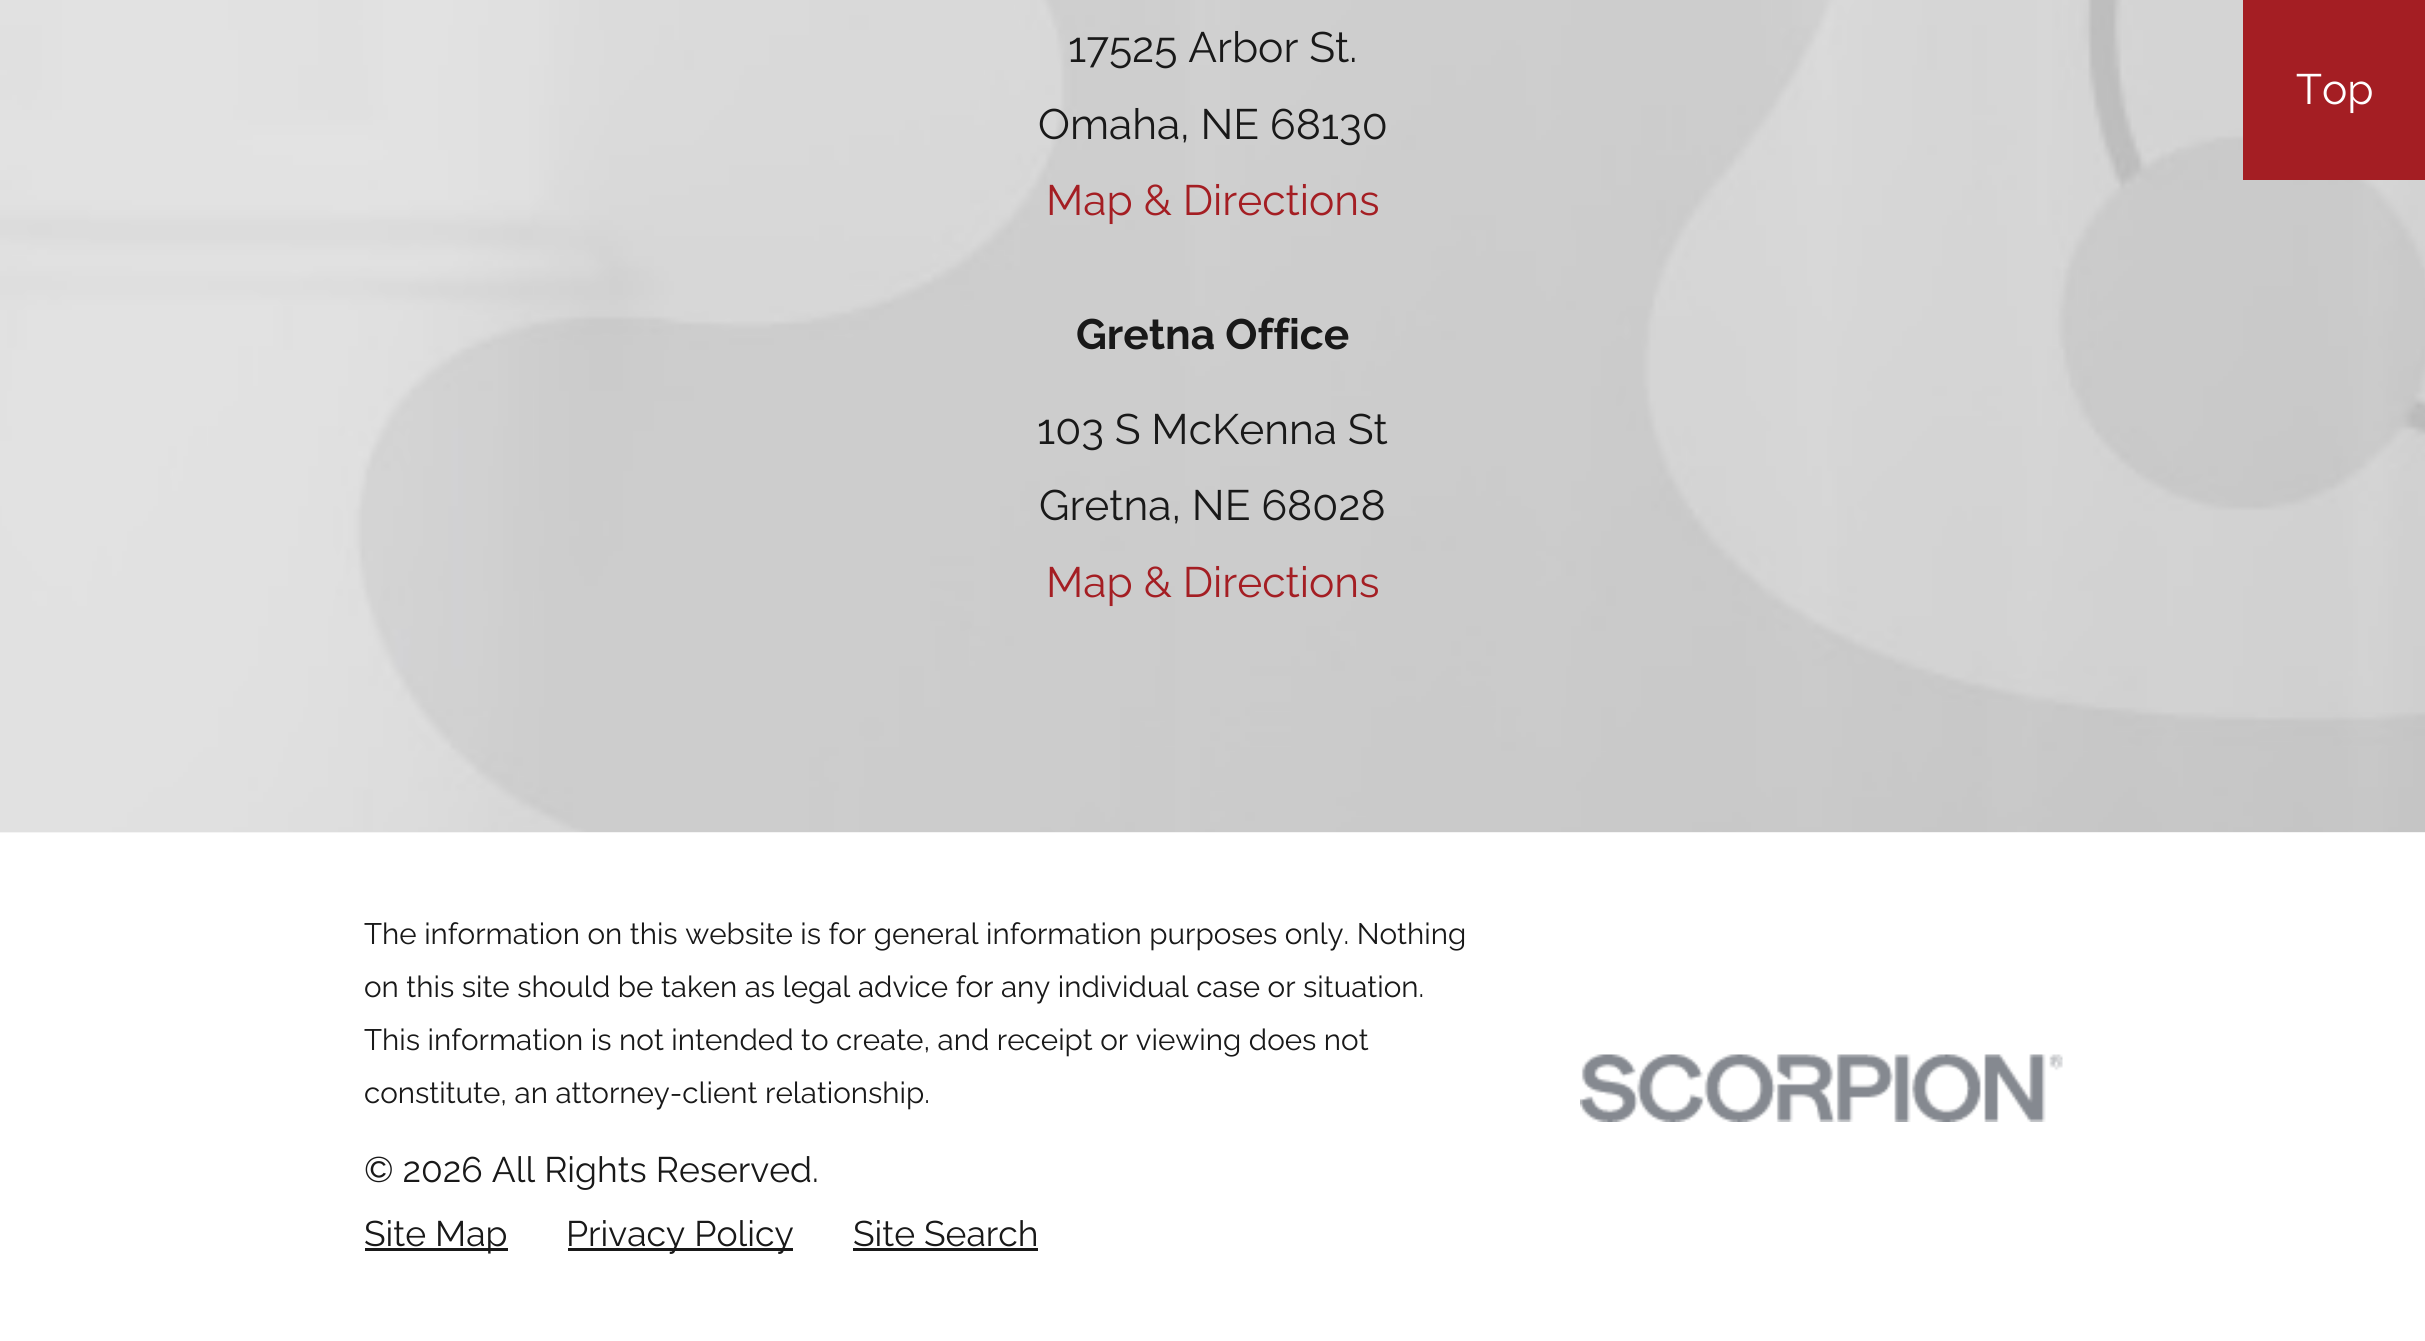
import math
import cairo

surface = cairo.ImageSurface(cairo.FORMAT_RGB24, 2425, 1341)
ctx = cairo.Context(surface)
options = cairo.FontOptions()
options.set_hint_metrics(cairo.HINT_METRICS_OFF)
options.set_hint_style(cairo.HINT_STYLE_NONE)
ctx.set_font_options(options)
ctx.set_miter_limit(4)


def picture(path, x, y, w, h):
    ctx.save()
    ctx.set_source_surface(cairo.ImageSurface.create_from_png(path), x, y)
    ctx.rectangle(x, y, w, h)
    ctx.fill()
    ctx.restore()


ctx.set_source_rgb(1, 1, 1)
ctx.paint()
ctx.set_source_rgb(0.957, 0.957, 0.957)
ctx.rectangle(0, 832, 2425, 1)
ctx.fill()
picture("img1.png", 0, 0, 2425, 832)
ctx.select_font_face("Raleway")
ctx.set_font_size(42.5)
ctx.set_source_rgb(0.098, 0.098, 0.098)
ctx.move_to(1068, 62)
ctx.show_text("17525 Arbor St.")
ctx.move_to(1038, 139)
ctx.show_text("Omaha, NE 68130")
ctx.set_source_rgb(0.643, 0.118, 0.137)
ctx.move_to(1046, 215)
ctx.show_text("Map & Directions")
ctx.select_font_face("Raleway", cairo.FONT_SLANT_NORMAL, cairo.FONT_WEIGHT_BOLD)
ctx.set_source_rgb(0.098, 0.098, 0.098)
ctx.move_to(1076, 349)
ctx.show_text("Gretna Office")
ctx.select_font_face("Raleway")
ctx.move_to(1037, 444)
ctx.show_text("103 S McKenna St")
ctx.move_to(1039, 520)
ctx.show_text("Gretna, NE 68028")
ctx.set_source_rgb(0.643, 0.118, 0.137)
ctx.move_to(1046, 597)
ctx.show_text("Map & Directions")
ctx.set_font_size(29.55)
ctx.set_source_rgb(0.098, 0.098, 0.098)
ctx.move_to(364, 944)
ctx.show_text("The information on this website is for general information purposes only. Nothing")
ctx.move_to(364, 997)
ctx.show_text("on this site should be taken as legal advice for any individual case or situation.")
ctx.move_to(364, 1050)
ctx.show_text("This information is not intended to create, and receipt or viewing does not")
ctx.move_to(364, 1103)
ctx.show_text("constitute, an attorney-client relationship.")
ctx.set_font_size(35.5)
ctx.move_to(364, 1182)
ctx.show_text("© 2026 All Rights Reserved.")
ctx.rectangle(365, 1248, 143, 3)
ctx.fill()
ctx.move_to(364, 1246)
ctx.show_text("Site Map")
ctx.rectangle(568, 1248, 225, 3)
ctx.fill()
ctx.move_to(566, 1246)
ctx.show_text("Privacy Policy")
ctx.move_to(853, 1246)
ctx.show_text("Site Search")
ctx.rectangle(853, 1248, 185, 3)
ctx.fill()
picture("img2.png", 1580, 1054, 483, 68)
ctx.set_source_rgb(0.643, 0.118, 0.137)
ctx.rectangle(2243, 0, 182, 180)
ctx.fill()
ctx.set_font_size(42.5)
ctx.set_source_rgb(1, 1, 1)
ctx.move_to(2296, 104)
ctx.show_text("Top")
surface.write_to_png("page.png")
